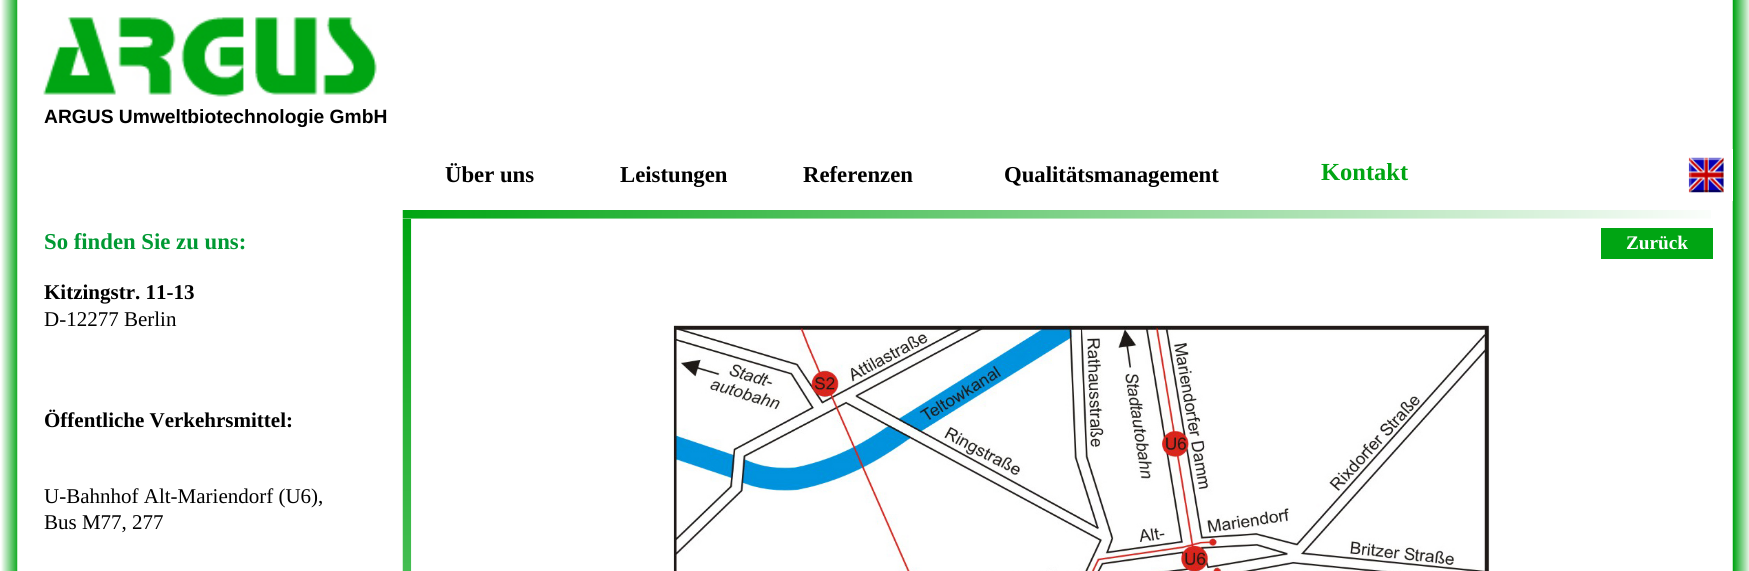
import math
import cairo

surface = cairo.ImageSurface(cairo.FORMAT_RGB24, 1749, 571)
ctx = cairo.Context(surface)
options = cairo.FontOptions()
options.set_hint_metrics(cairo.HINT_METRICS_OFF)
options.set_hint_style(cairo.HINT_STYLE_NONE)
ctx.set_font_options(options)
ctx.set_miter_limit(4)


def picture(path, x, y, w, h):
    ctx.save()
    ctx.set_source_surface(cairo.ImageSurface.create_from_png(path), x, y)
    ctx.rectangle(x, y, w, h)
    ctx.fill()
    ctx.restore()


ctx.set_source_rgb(1, 1, 1)
ctx.paint()
picture("img1.png", 1, 0, 17, 571)
picture("img2.png", 43, 17, 334, 80)
ctx.select_font_face("Liberation Sans", cairo.FONT_SLANT_NORMAL, cairo.FONT_WEIGHT_BOLD)
ctx.set_font_size(19.25)
ctx.set_source_rgb(0, 0, 0)
ctx.move_to(44, 123)
ctx.show_text("ARGUS Umweltbiotechnologie GmbH")
picture("img3.png", 1732, 0, 17, 571)
ctx.select_font_face("Liberation Serif", cairo.FONT_SLANT_NORMAL, cairo.FONT_WEIGHT_BOLD)
ctx.set_font_size(22.75)
ctx.move_to(445, 182)
ctx.show_text("Über uns")
ctx.move_to(620, 182)
ctx.show_text("Leistungen")
ctx.move_to(803, 182)
ctx.show_text("Referenzen")
ctx.move_to(1004, 182)
ctx.show_text("Qualitätsmanagement")
ctx.set_font_size(24.5)
ctx.set_source_rgb(0, 0.647, 0.075)
ctx.move_to(1321, 180)
ctx.show_text("Kontakt")
ctx.set_source_rgb(1, 1, 1)
ctx.rectangle(1732, 149, 1, 52)
ctx.fill()
picture("img4.png", 1688, 157, 36, 36)
picture("img5.png", 402, 210, 1309, 9)
ctx.set_font_size(22.75)
ctx.set_source_rgb(0, 0.6, 0.2)
ctx.move_to(44, 249)
ctx.show_text("So finden Sie zu uns:")
ctx.set_font_size(21)
ctx.set_source_rgb(0, 0, 0)
ctx.move_to(44, 299)
ctx.show_text("Kitzingstr. 11-13")
ctx.select_font_face("Liberation Serif")
ctx.move_to(44, 326)
ctx.show_text("D-12277 Berlin")
ctx.select_font_face("Liberation Serif", cairo.FONT_SLANT_NORMAL, cairo.FONT_WEIGHT_BOLD)
ctx.move_to(44, 427)
ctx.show_text("Öffentliche Verkehrsmittel:")
ctx.select_font_face("Liberation Serif")
ctx.move_to(44, 503)
ctx.show_text("U-Bahnhof Alt-Mariendorf (U6),")
ctx.move_to(44, 529)
ctx.show_text("Bus M77, 277")
picture("img6.png", 402, 218, 10, 353)
ctx.set_source_rgb(0, 0.647, 0.075)
ctx.rectangle(1601, 228, 112, 31)
ctx.fill()
ctx.select_font_face("Liberation Serif", cairo.FONT_SLANT_NORMAL, cairo.FONT_WEIGHT_BOLD)
ctx.set_font_size(19.25)
ctx.set_source_rgb(1, 1, 1)
ctx.move_to(1626, 249)
ctx.show_text("Zurück")
picture("img7.png", 673, 324, 817, 247)
surface.write_to_png("page.png")
